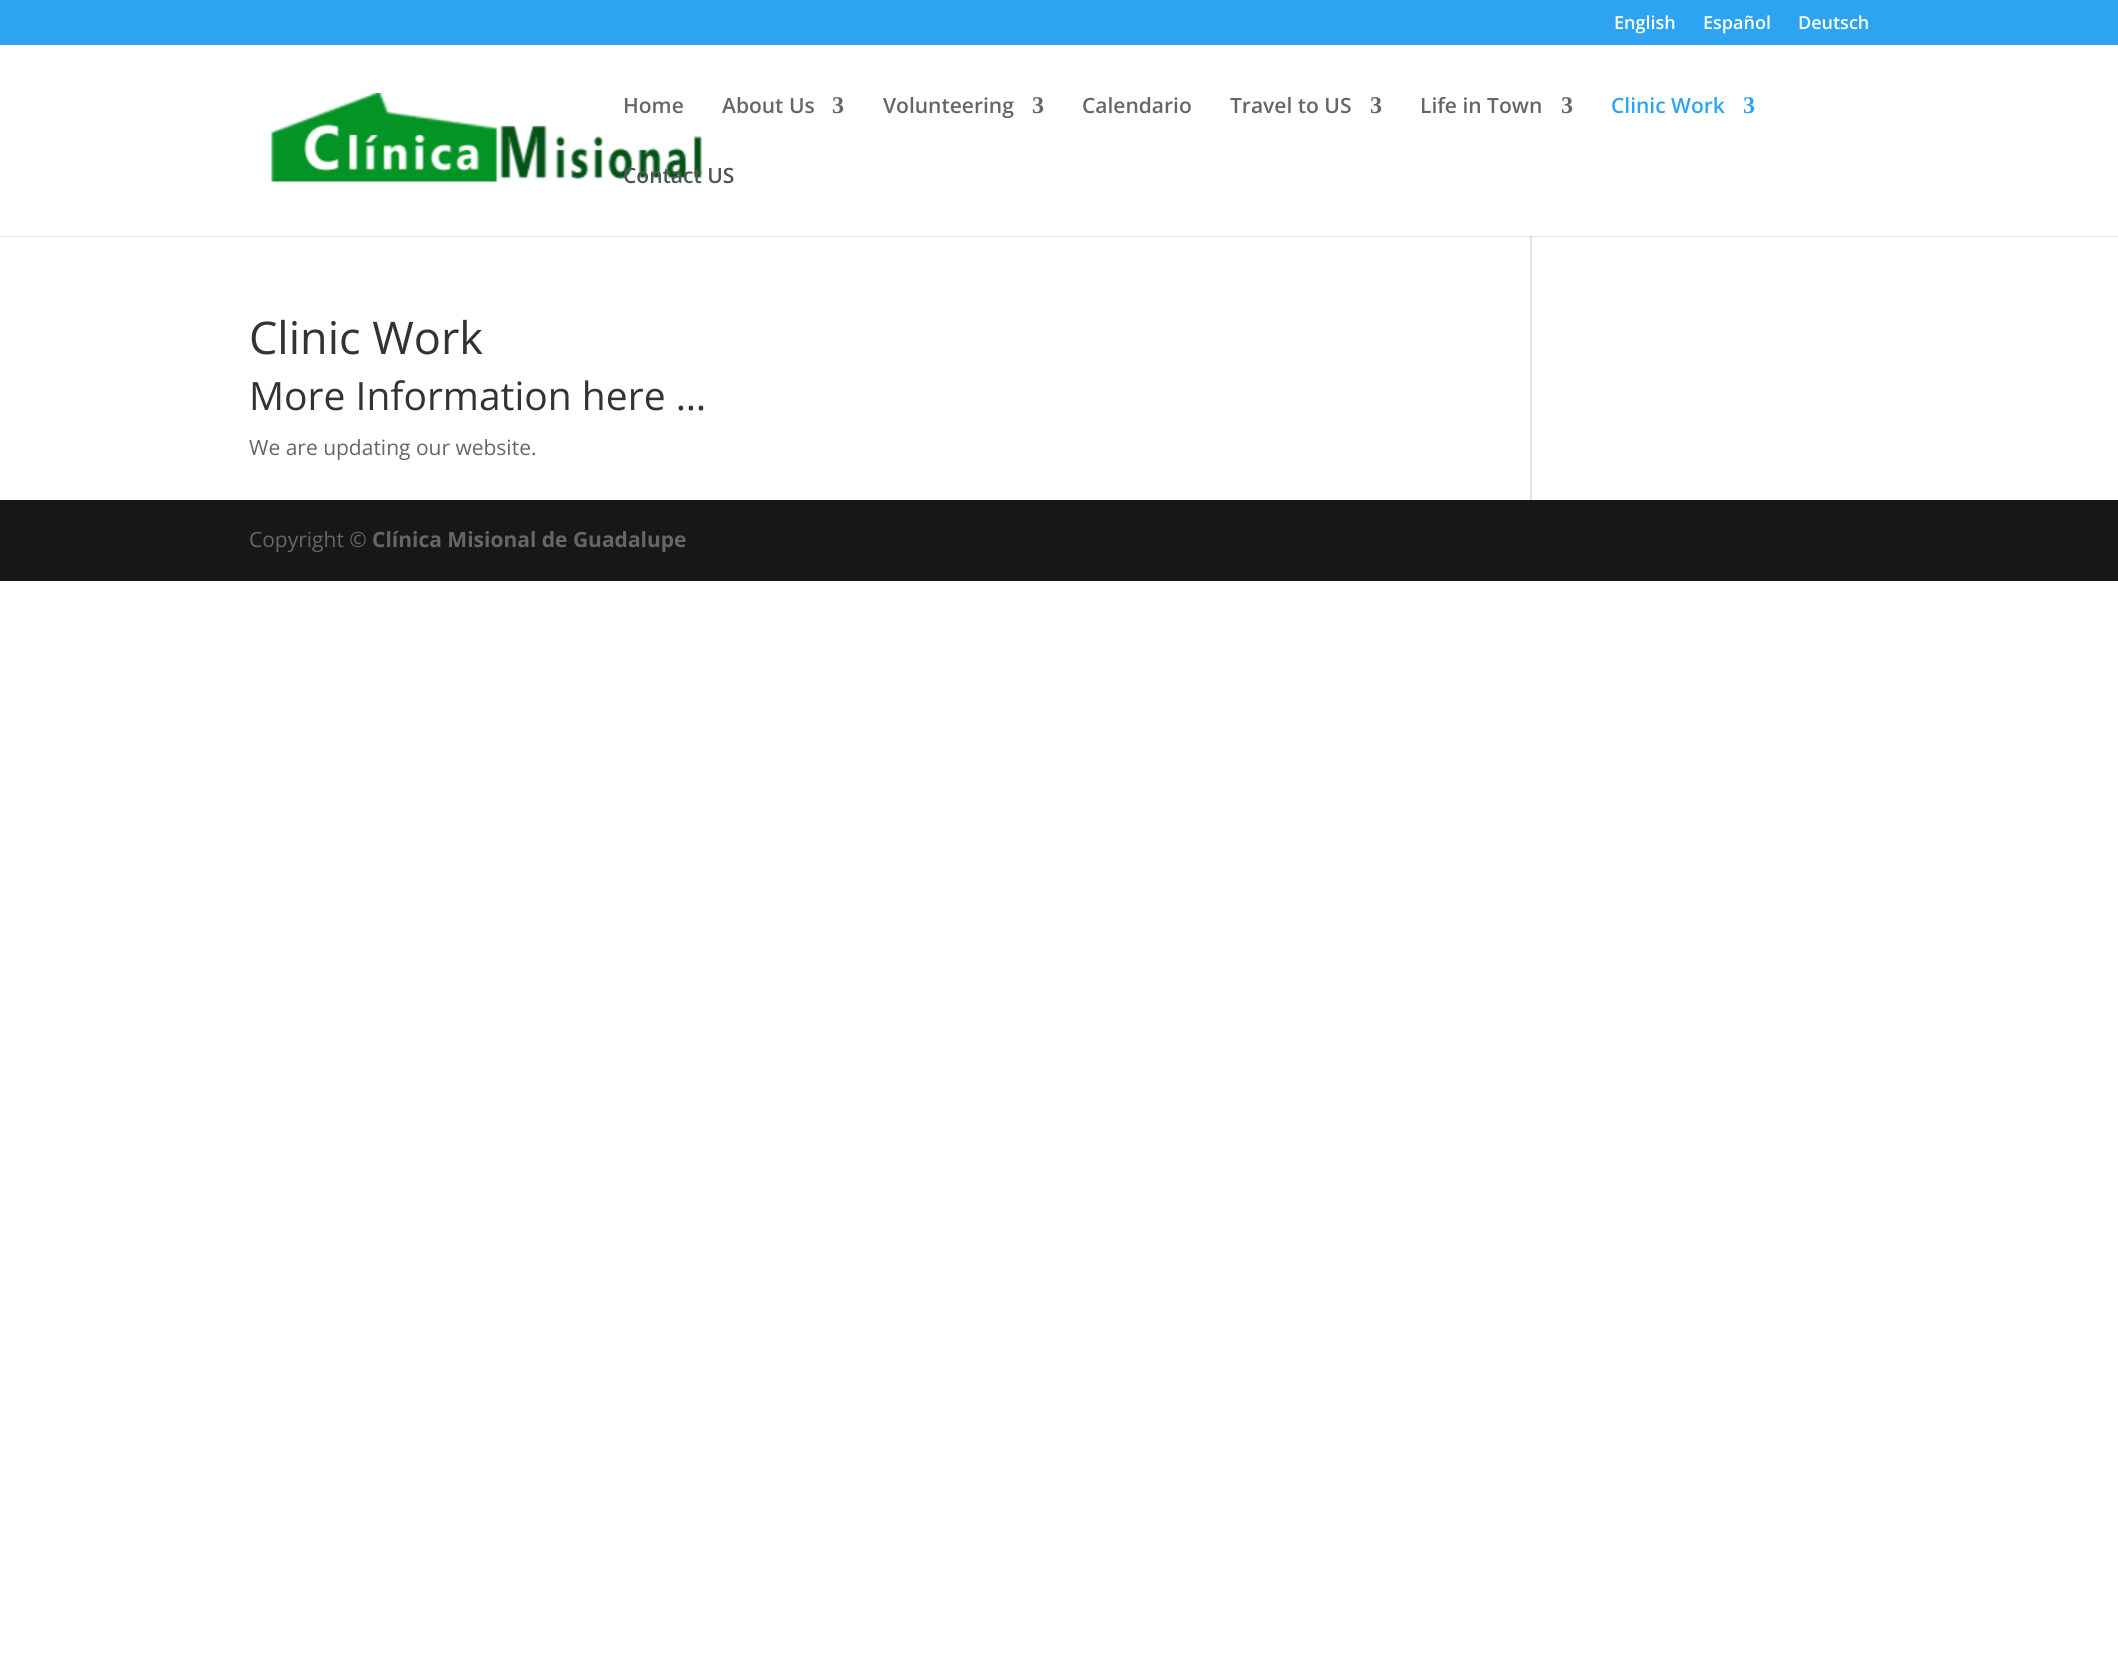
import math
import cairo

surface = cairo.ImageSurface(cairo.FORMAT_RGB24, 2118, 1677)
ctx = cairo.Context(surface)
options = cairo.FontOptions()
options.set_hint_metrics(cairo.HINT_METRICS_OFF)
options.set_hint_style(cairo.HINT_STYLE_NONE)
ctx.set_font_options(options)
ctx.set_miter_limit(4)


def picture(path, x, y, w, h):
    ctx.save()
    ctx.set_source_surface(cairo.ImageSurface.create_from_png(path), x, y)
    ctx.rectangle(x, y, w, h)
    ctx.fill()
    ctx.restore()


ctx.set_source_rgb(1, 1, 1)
ctx.paint()
ctx.set_source_rgb(0.902, 0.902, 0.902)
ctx.rectangle(0, 236, 2118, 1)
ctx.fill()
ctx.set_source_rgb(0.18, 0.639, 0.949)
ctx.rectangle(0, 0, 2118, 45)
ctx.fill()
ctx.select_font_face("Open Sans SemiBold")
ctx.set_font_size(18)
ctx.set_source_rgb(1, 1, 1)
ctx.move_to(1614, 29)
ctx.show_text("English")
ctx.move_to(1703, 29)
ctx.show_text("Español")
ctx.move_to(1798, 29)
ctx.show_text("Deutsch")
picture("img1.png", 270, 93, 433, 89)
ctx.set_font_size(21)
ctx.set_source_rgb(0.4, 0.4, 0.4)
ctx.move_to(623, 113)
ctx.show_text("Home")
ctx.move_to(722, 113)
ctx.show_text("About Us")
ctx.select_font_face("Liberation Serif", cairo.FONT_SLANT_NORMAL, cairo.FONT_WEIGHT_BOLD)
ctx.set_font_size(24)
ctx.move_to(832, 113)
ctx.show_text("3")
ctx.select_font_face("Open Sans SemiBold")
ctx.set_font_size(21)
ctx.move_to(883, 113)
ctx.show_text("Volunteering")
ctx.select_font_face("Liberation Serif", cairo.FONT_SLANT_NORMAL, cairo.FONT_WEIGHT_BOLD)
ctx.set_font_size(24)
ctx.move_to(1032, 113)
ctx.show_text("3")
ctx.select_font_face("Open Sans SemiBold")
ctx.set_font_size(21)
ctx.move_to(1082, 113)
ctx.show_text("Calendario")
ctx.move_to(1230, 113)
ctx.show_text("Travel to US")
ctx.select_font_face("Liberation Serif", cairo.FONT_SLANT_NORMAL, cairo.FONT_WEIGHT_BOLD)
ctx.set_font_size(24)
ctx.move_to(1370, 113)
ctx.show_text("3")
ctx.select_font_face("Open Sans SemiBold")
ctx.set_font_size(21)
ctx.move_to(1420, 113)
ctx.show_text("Life in Town")
ctx.select_font_face("Liberation Serif", cairo.FONT_SLANT_NORMAL, cairo.FONT_WEIGHT_BOLD)
ctx.set_font_size(24)
ctx.move_to(1561, 113)
ctx.show_text("3")
ctx.select_font_face("Open Sans SemiBold")
ctx.set_font_size(21)
ctx.set_source_rgb(0.18, 0.639, 0.949)
ctx.move_to(1611, 113)
ctx.show_text("Clinic Work")
ctx.select_font_face("Liberation Serif", cairo.FONT_SLANT_NORMAL, cairo.FONT_WEIGHT_BOLD)
ctx.set_font_size(24)
ctx.move_to(1743, 113)
ctx.show_text("3")
ctx.select_font_face("Open Sans SemiBold")
ctx.set_font_size(21)
ctx.set_source_rgb(0.31, 0.337, 0.314)
ctx.move_to(623, 183)
ctx.show_text("Contact US")
ctx.select_font_face("Open Sans")
ctx.set_font_size(45)
ctx.set_source_rgb(0.2, 0.2, 0.2)
ctx.move_to(249, 354)
ctx.show_text("Clinic Work")
ctx.set_font_size(39)
ctx.move_to(249, 410)
ctx.show_text("More Information here …")
ctx.set_font_size(21)
ctx.set_source_rgb(0.4, 0.4, 0.4)
ctx.move_to(249, 455)
ctx.show_text("We are updating our website.")
ctx.set_source_rgb(0.886, 0.886, 0.886)
ctx.rectangle(1530, 237, 2, 263)
ctx.fill()
ctx.set_source_rgb(0.796, 0.796, 0.796)
ctx.rectangle(1530, 236, 2, 1)
ctx.fill()
ctx.set_source_rgb(0.09, 0.09, 0.09)
ctx.rectangle(0, 500, 2118, 81)
ctx.fill()
ctx.set_source_rgb(0.4, 0.4, 0.4)
ctx.move_to(249, 547)
ctx.show_text("Copyright ©")
ctx.select_font_face("Open Sans", cairo.FONT_SLANT_NORMAL, cairo.FONT_WEIGHT_BOLD)
ctx.move_to(372, 547)
ctx.show_text("Clínica Misional de Guadalupe")
surface.write_to_png("page.png")
